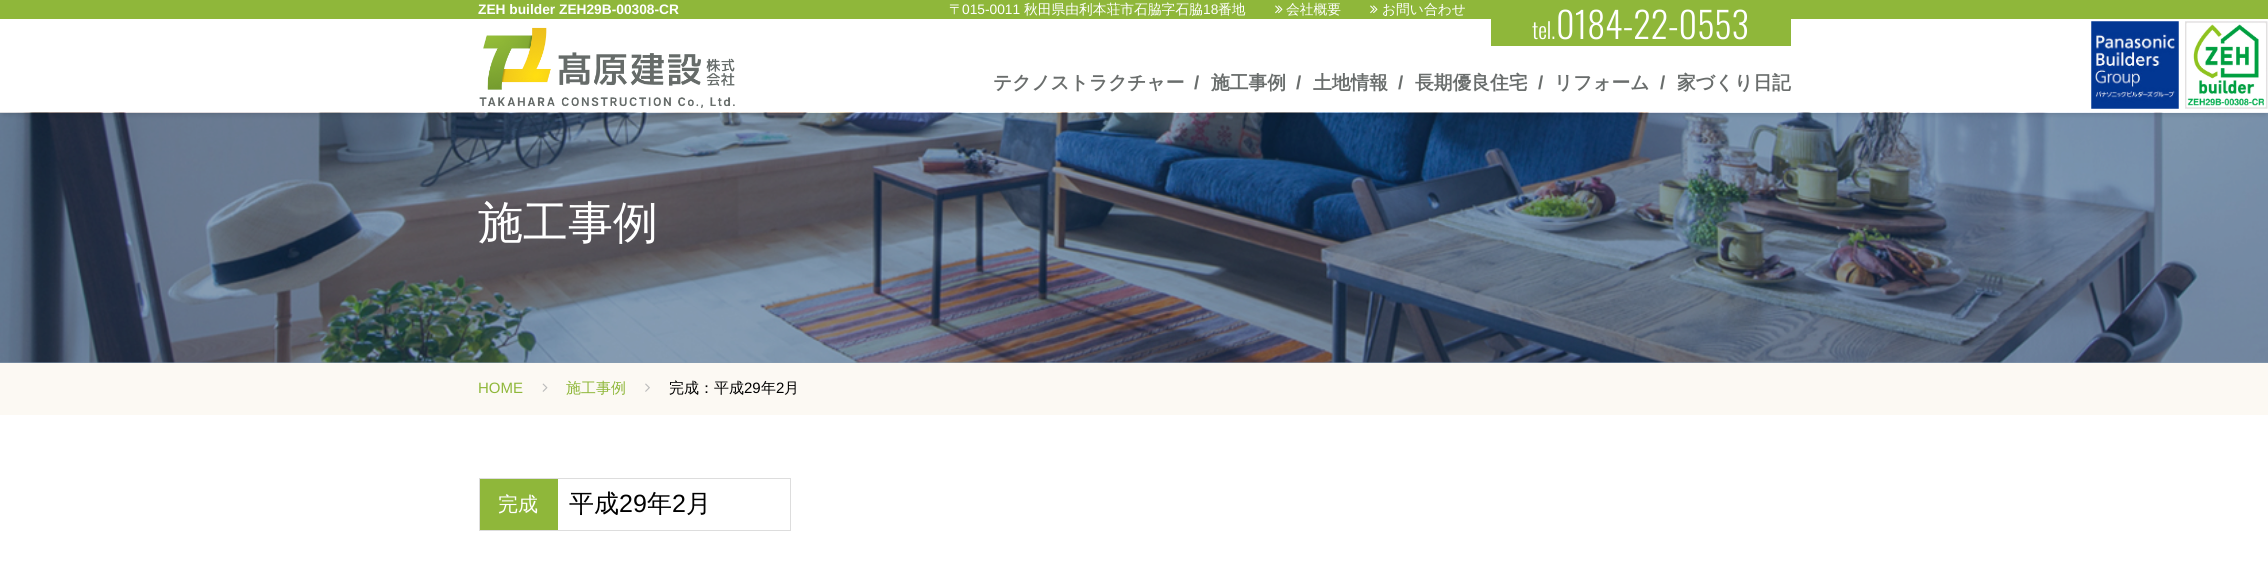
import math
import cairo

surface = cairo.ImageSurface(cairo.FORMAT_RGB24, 2268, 569)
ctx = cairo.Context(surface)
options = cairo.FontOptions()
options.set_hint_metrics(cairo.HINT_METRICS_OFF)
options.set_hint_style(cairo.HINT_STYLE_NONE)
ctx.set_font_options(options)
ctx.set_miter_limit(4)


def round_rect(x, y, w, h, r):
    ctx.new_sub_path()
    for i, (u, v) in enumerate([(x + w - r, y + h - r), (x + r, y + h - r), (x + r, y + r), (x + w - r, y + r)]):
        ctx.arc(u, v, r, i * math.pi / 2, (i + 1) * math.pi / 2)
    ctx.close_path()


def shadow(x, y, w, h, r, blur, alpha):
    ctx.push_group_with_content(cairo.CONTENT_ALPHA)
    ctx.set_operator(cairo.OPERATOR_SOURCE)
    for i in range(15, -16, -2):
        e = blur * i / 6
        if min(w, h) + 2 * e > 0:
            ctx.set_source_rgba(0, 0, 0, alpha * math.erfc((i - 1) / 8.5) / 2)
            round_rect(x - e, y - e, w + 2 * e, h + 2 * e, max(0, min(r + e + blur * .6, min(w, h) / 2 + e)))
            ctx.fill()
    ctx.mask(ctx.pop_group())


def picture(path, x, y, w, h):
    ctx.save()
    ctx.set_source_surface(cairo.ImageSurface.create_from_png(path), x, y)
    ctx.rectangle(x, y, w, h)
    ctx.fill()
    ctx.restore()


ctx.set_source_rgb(1, 1, 1)
ctx.paint()
ctx.set_source_rgb(0.533, 0.62, 0.702)
ctx.rectangle(0, 362, 2268, 1)
ctx.fill()
picture("img5.png", 0, 112, 2268, 251)
ctx.save()
ctx.set_fill_rule(cairo.FILL_RULE_EVEN_ODD)
ctx.new_path()
ctx.move_to(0, 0)
ctx.line_to(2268, 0)
ctx.line_to(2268, 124)
ctx.line_to(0, 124)
ctx.close_path()
ctx.move_to(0, 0)
ctx.line_to(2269, 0)
ctx.line_to(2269, 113)
ctx.line_to(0, 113)
ctx.close_path()
ctx.clip()
ctx.set_source_rgb(0, 0, 0)
shadow(4, 9, 2261, 105, 0, 3, 0.15)
ctx.restore()
ctx.set_source_rgb(0.561, 0.718, 0.227)
ctx.rectangle(0, 0, 2268, 19)
ctx.fill()
ctx.select_font_face("Liberation Sans", cairo.FONT_SLANT_NORMAL, cairo.FONT_WEIGHT_BOLD)
ctx.set_font_size(13.75)
ctx.set_source_rgb(1, 1, 1)
ctx.move_to(478, 14)
ctx.show_text("ZEH builder ZEH29B-00308-CR")
ctx.select_font_face("WenQuanYi Zen Hei Medium")
ctx.move_to(949, 14)
ctx.show_text("〒")
ctx.select_font_face("Liberation Sans")
ctx.move_to(962, 14)
ctx.show_text("015-0011")
ctx.select_font_face("WenQuanYi Zen Hei Medium")
ctx.move_to(1024, 14)
ctx.show_text("秋田県由利本荘市石脇字石脇")
ctx.select_font_face("Liberation Sans")
ctx.move_to(1203, 14)
ctx.show_text("18")
ctx.select_font_face("WenQuanYi Zen Hei Medium")
ctx.move_to(1218, 14)
ctx.show_text("番地")
picture("img1.png", 1275, 5, 8, 9)
ctx.move_to(1286, 14)
ctx.show_text("会社概要")
picture("img1.png", 1370, 5, 8, 9)
ctx.move_to(1382, 14)
ctx.show_text("お問い合わせ")
ctx.set_source_rgb(0.561, 0.718, 0.227)
ctx.rectangle(1491, 19, 300, 27)
ctx.fill()
ctx.select_font_face("Oswald Light")
ctx.set_font_size(22)
ctx.set_source_rgb(1, 1, 1)
ctx.move_to(1532, 39)
ctx.show_text("tel.")
ctx.set_font_size(36)
ctx.move_to(1556, 39)
ctx.show_text("0184-22-0553")
picture("img2.png", 2091, 21, 88, 88)
picture("img3.png", 2185, 21, 83, 88)
picture("img4.png", 479, 27, 256, 81)
ctx.select_font_face("WenQuanYi Zen Hei", cairo.FONT_SLANT_NORMAL, cairo.FONT_WEIGHT_BOLD)
ctx.set_font_size(18.75)
ctx.set_source_rgb(0.412, 0.427, 0.424)
ctx.move_to(993, 89)
ctx.show_text("テクノストラクチャー")
ctx.select_font_face("Liberation Sans", cairo.FONT_SLANT_NORMAL, cairo.FONT_WEIGHT_BOLD)
ctx.move_to(1194, 89)
ctx.show_text("/")
ctx.select_font_face("WenQuanYi Zen Hei", cairo.FONT_SLANT_NORMAL, cairo.FONT_WEIGHT_BOLD)
ctx.move_to(1211, 89)
ctx.show_text("施工事例")
ctx.select_font_face("Liberation Sans", cairo.FONT_SLANT_NORMAL, cairo.FONT_WEIGHT_BOLD)
ctx.move_to(1296, 89)
ctx.show_text("/")
ctx.select_font_face("WenQuanYi Zen Hei", cairo.FONT_SLANT_NORMAL, cairo.FONT_WEIGHT_BOLD)
ctx.move_to(1313, 89)
ctx.show_text("土地情報")
ctx.select_font_face("Liberation Sans", cairo.FONT_SLANT_NORMAL, cairo.FONT_WEIGHT_BOLD)
ctx.move_to(1398, 89)
ctx.show_text("/")
ctx.select_font_face("WenQuanYi Zen Hei", cairo.FONT_SLANT_NORMAL, cairo.FONT_WEIGHT_BOLD)
ctx.move_to(1415, 89)
ctx.show_text("長期優良住宅")
ctx.select_font_face("Liberation Sans", cairo.FONT_SLANT_NORMAL, cairo.FONT_WEIGHT_BOLD)
ctx.move_to(1538, 89)
ctx.show_text("/")
ctx.select_font_face("WenQuanYi Zen Hei", cairo.FONT_SLANT_NORMAL, cairo.FONT_WEIGHT_BOLD)
ctx.move_to(1554, 89)
ctx.show_text("リフォーム")
ctx.select_font_face("Liberation Sans", cairo.FONT_SLANT_NORMAL, cairo.FONT_WEIGHT_BOLD)
ctx.move_to(1660, 89)
ctx.show_text("/")
ctx.select_font_face("WenQuanYi Zen Hei", cairo.FONT_SLANT_NORMAL, cairo.FONT_WEIGHT_BOLD)
ctx.move_to(1677, 89)
ctx.show_text("家づくり日記")
ctx.select_font_face("WenQuanYi Zen Hei Medium")
ctx.set_font_size(45)
ctx.set_source_rgb(1, 1, 1)
ctx.move_to(478, 238)
ctx.show_text("施工事例")
ctx.set_source_rgb(0.988, 0.976, 0.953)
ctx.rectangle(0, 363, 2268, 52)
ctx.fill()
ctx.select_font_face("Liberation Sans")
ctx.set_font_size(15)
ctx.set_source_rgb(0.561, 0.718, 0.227)
ctx.move_to(478, 393)
ctx.show_text("HOME")
picture("img6.png", 542, 383, 6, 9)
ctx.select_font_face("WenQuanYi Zen Hei Medium")
ctx.move_to(566, 393)
ctx.show_text("施工事例")
picture("img7.png", 645, 383, 5, 9)
ctx.set_source_rgb(0, 0, 0)
ctx.move_to(669, 393)
ctx.show_text("完成：平成")
ctx.select_font_face("Liberation Sans")
ctx.move_to(744, 393)
ctx.show_text("29")
ctx.select_font_face("WenQuanYi Zen Hei Medium")
ctx.move_to(761, 393)
ctx.show_text("年")
ctx.select_font_face("Liberation Sans")
ctx.move_to(776, 393)
ctx.show_text("2")
ctx.select_font_face("WenQuanYi Zen Hei Medium")
ctx.move_to(784, 393)
ctx.show_text("月")
ctx.rectangle(479.5, 478.5, 311, 52)
ctx.set_source_rgb(0.867, 0.867, 0.867)
ctx.set_line_width(1)
ctx.stroke()
ctx.set_source_rgb(0.561, 0.718, 0.227)
ctx.rectangle(480, 479, 78, 51)
ctx.fill()
ctx.set_font_size(20)
ctx.set_source_rgb(1, 1, 1)
ctx.move_to(498, 511)
ctx.show_text("完成")
ctx.set_font_size(25)
ctx.set_source_rgb(0, 0, 0)
ctx.move_to(569, 512)
ctx.show_text("平成")
ctx.select_font_face("Liberation Sans")
ctx.move_to(619, 512)
ctx.show_text("29")
ctx.select_font_face("WenQuanYi Zen Hei Medium")
ctx.move_to(647, 512)
ctx.show_text("年")
ctx.select_font_face("Liberation Sans")
ctx.move_to(672, 512)
ctx.show_text("2")
ctx.select_font_face("WenQuanYi Zen Hei Medium")
ctx.move_to(686, 512)
ctx.show_text("月")
surface.write_to_png("page.png")
